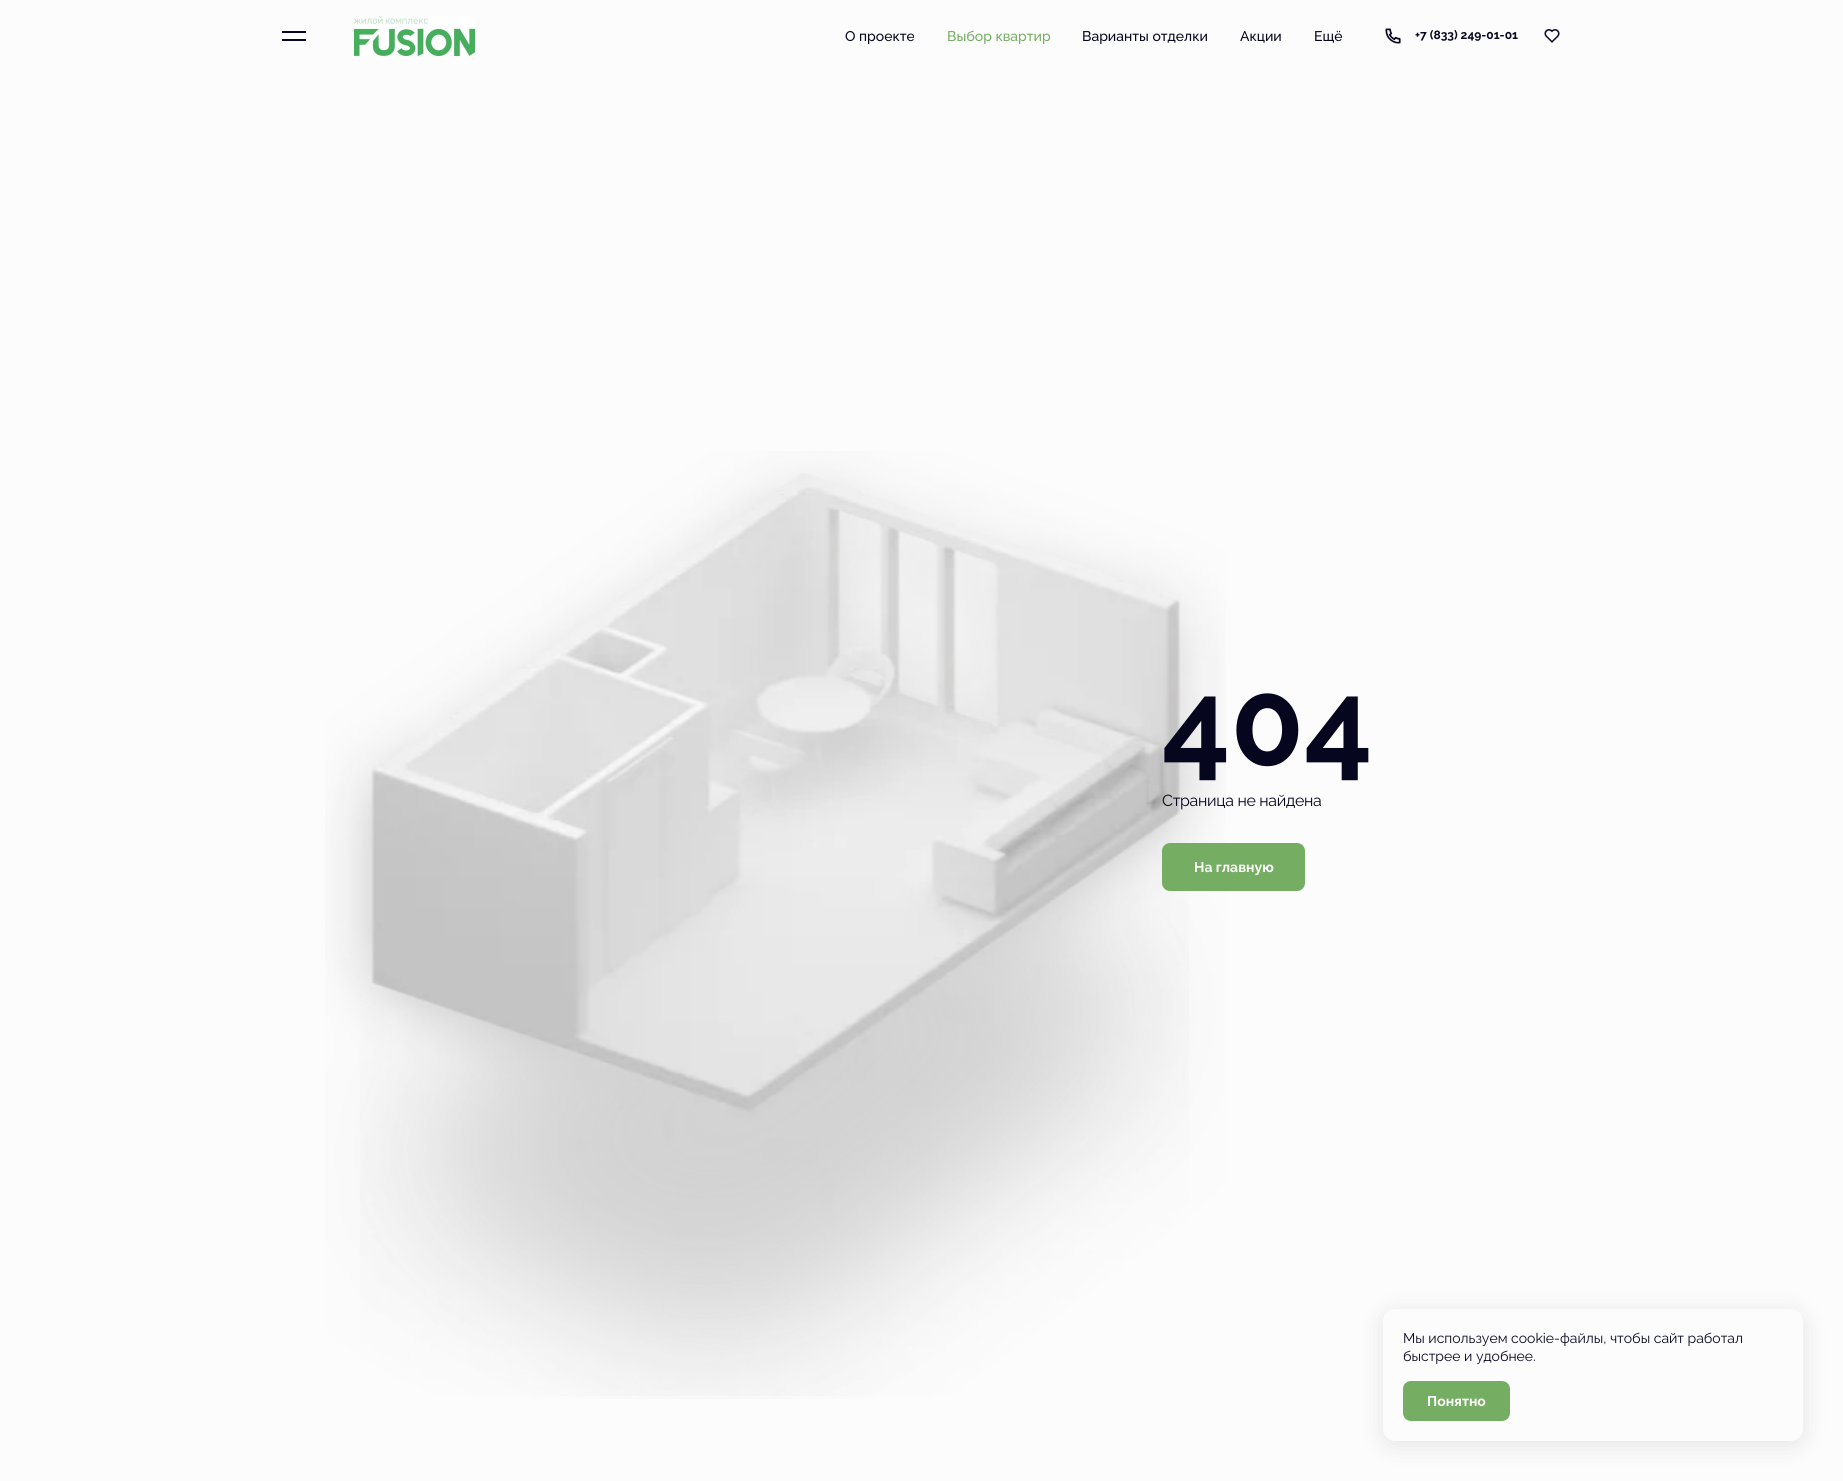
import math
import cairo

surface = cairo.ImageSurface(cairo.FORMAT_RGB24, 1843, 1481)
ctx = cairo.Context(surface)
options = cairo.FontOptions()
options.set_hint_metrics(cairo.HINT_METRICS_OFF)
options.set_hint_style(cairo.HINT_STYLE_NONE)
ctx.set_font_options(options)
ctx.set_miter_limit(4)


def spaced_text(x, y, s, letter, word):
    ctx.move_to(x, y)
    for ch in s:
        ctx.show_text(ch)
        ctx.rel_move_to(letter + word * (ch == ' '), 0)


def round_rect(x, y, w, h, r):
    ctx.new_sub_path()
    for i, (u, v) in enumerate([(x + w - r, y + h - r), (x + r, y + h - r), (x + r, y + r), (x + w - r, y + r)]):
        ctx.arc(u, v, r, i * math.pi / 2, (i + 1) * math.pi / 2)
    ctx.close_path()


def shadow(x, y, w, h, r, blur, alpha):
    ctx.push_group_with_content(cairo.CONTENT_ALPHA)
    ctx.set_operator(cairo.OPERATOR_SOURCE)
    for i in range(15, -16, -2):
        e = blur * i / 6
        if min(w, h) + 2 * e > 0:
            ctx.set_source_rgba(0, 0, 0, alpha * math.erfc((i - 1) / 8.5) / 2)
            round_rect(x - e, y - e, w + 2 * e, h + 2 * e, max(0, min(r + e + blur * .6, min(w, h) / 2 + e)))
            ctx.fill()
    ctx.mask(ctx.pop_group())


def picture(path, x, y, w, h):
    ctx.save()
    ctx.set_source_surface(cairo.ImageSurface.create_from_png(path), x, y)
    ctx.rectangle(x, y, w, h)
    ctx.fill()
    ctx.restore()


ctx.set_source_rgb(0.988, 0.988, 0.988)
ctx.paint()
ctx.set_source_rgb(0.027, 0.027, 0.122)
ctx.rectangle(282, 31, 24, 2)
ctx.fill()
ctx.rectangle(282, 39, 24, 2)
ctx.fill()
picture("img1.png", 354, 16, 121, 40)
ctx.select_font_face("Raleway Medium")
ctx.set_font_size(14)
ctx.move_to(845, 41)
ctx.show_text("О проекте")
ctx.set_source_rgb(0.459, 0.678, 0.384)
ctx.move_to(947, 41)
ctx.show_text("Выбор квартир")
ctx.set_source_rgb(0.027, 0.027, 0.122)
ctx.move_to(1082, 41)
ctx.show_text("Варианты отделки")
ctx.move_to(1240, 41)
ctx.show_text("Акции")
ctx.move_to(1314, 41)
ctx.show_text("Ещё")
picture("img2.png", 1385, 28, 16, 16)
ctx.select_font_face("Raleway", cairo.FONT_SLANT_NORMAL, cairo.FONT_WEIGHT_BOLD)
ctx.set_font_size(12)
ctx.move_to(1415, 39)
ctx.show_text("+7 (833) 249-01-01")
picture("img3.png", 1544, 29, 16, 14)
picture("img4.png", 325, 451, 901, 945)
picture("img5.png", 360, 473, 829, 926)
ctx.set_font_size(120)
ctx.move_to(1162, 765)
ctx.show_text("404")
ctx.select_font_face("Raleway")
ctx.set_font_size(16)
spaced_text(1162, 806, "Страница не найдена", -0.3, 0)
ctx.set_source_rgb(0.459, 0.678, 0.384)
round_rect(1162, 843, 143, 48, 8)
ctx.fill()
ctx.select_font_face("Raleway", cairo.FONT_SLANT_NORMAL, cairo.FONT_WEIGHT_BOLD)
ctx.set_font_size(14)
ctx.set_source_rgb(0.988, 0.988, 0.988)
ctx.move_to(1194, 872)
ctx.show_text("На главную")
ctx.set_source_rgb(0, 0, 0)
shadow(1383, 1313, 420, 132, 12, 12, 0.1)
ctx.set_source_rgb(0.988, 0.988, 0.988)
round_rect(1383, 1309, 420, 132, 12)
ctx.fill()
ctx.select_font_face("Raleway")
ctx.set_source_rgb(0.027, 0.027, 0.122)
ctx.move_to(1403, 1343)
ctx.show_text("Мы используем cookie-файлы, чтобы сайт работал")
ctx.move_to(1403, 1361)
ctx.show_text("быстрее и удобнее.")
ctx.set_source_rgb(0.459, 0.678, 0.384)
round_rect(1403, 1381, 107, 40, 8)
ctx.fill()
ctx.select_font_face("Raleway", cairo.FONT_SLANT_NORMAL, cairo.FONT_WEIGHT_BOLD)
ctx.set_source_rgb(0.988, 0.988, 0.988)
ctx.move_to(1427, 1406)
ctx.show_text("Понятно")
surface.write_to_png("page.png")
